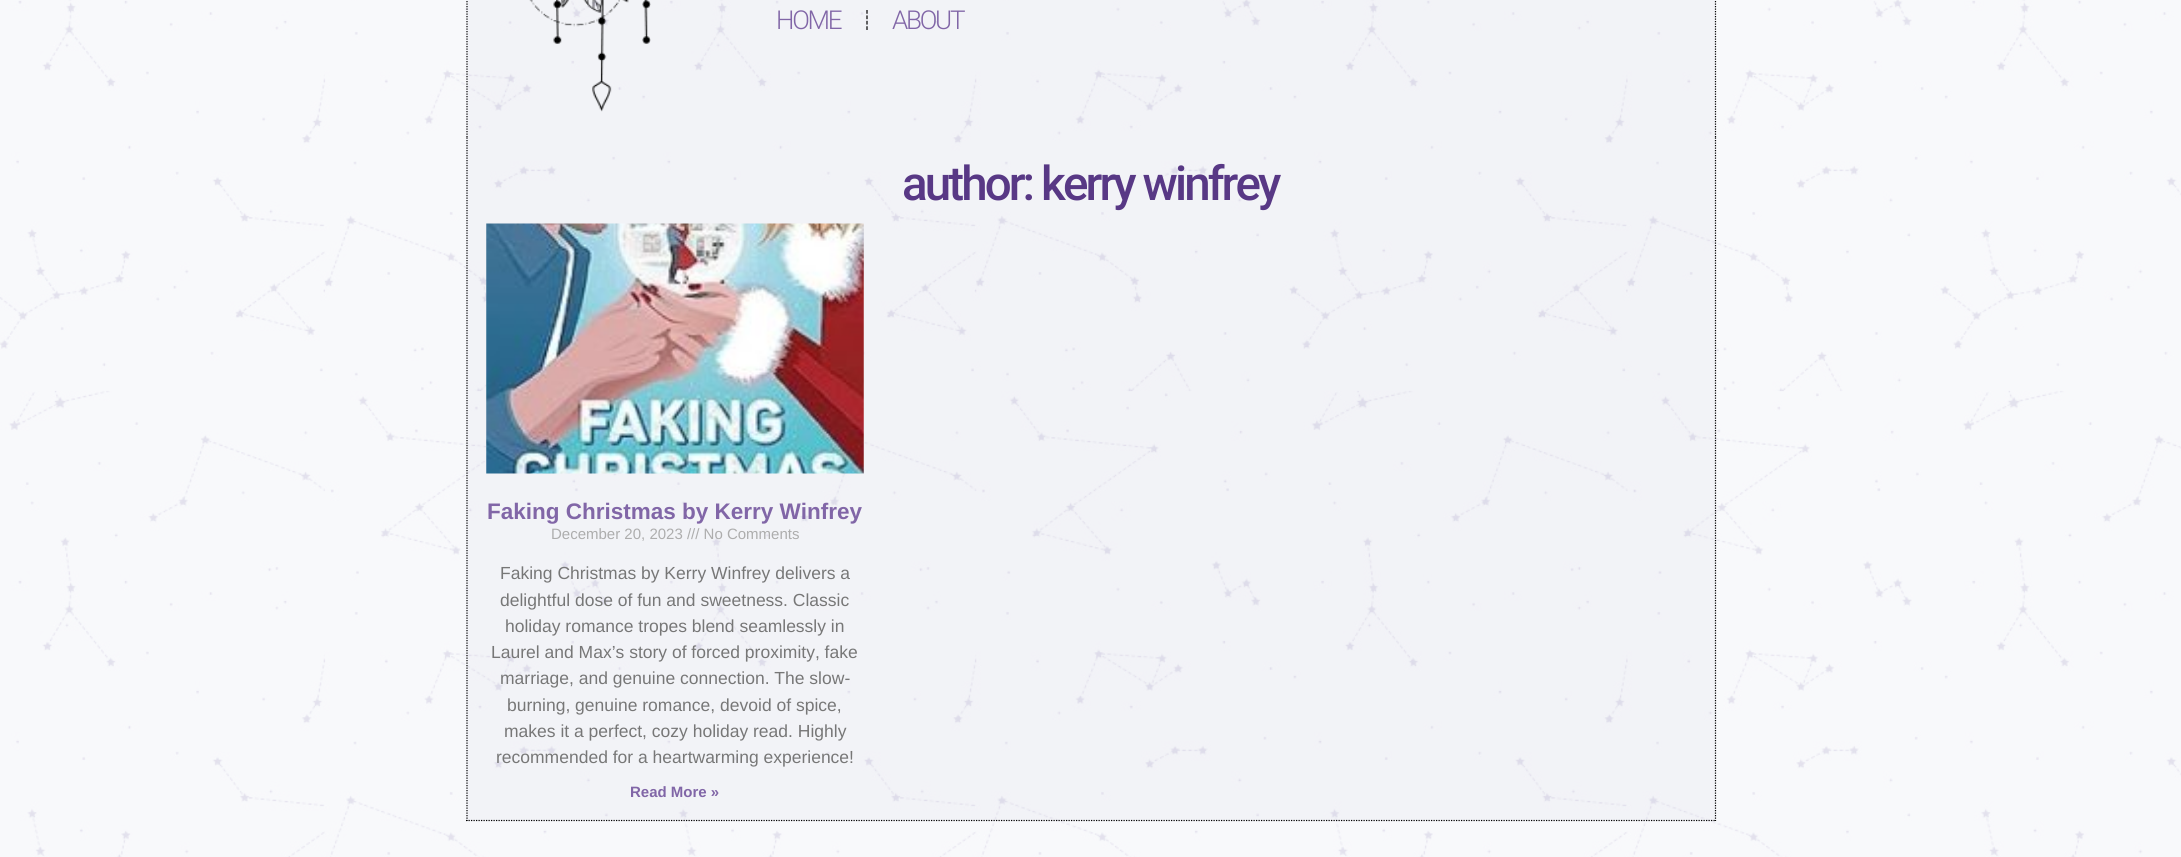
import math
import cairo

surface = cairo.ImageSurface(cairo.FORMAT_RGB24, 2181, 857)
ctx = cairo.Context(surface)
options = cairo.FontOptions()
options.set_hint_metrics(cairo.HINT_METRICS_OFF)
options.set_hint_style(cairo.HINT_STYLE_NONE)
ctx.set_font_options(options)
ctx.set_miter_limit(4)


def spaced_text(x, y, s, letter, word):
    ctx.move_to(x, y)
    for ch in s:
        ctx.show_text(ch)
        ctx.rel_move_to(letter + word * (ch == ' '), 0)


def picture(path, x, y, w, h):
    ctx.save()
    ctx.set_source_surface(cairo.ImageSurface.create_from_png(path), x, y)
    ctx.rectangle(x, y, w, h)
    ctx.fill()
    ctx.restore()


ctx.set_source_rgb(1, 1, 1)
ctx.paint()
picture("img1.png", 0, 0, 2181, 857)
ctx.set_source_rgba(0.506, 0.475, 0.627, 0.05)
ctx.rectangle(466, 0, 1250, 138)
ctx.fill()
ctx.new_path()
ctx.move_to(1715.5, -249)
ctx.line_to(1715.5, 137.5)
ctx.set_source_rgb(0, 0, 0)
ctx.set_line_width(1.2)
ctx.set_dash([1.25, 1.25])
ctx.stroke()
ctx.new_path()
ctx.move_to(467, -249)
ctx.line_to(467, 137.5)
ctx.stroke()
picture("img2.png", 529, 0, 122, 112)
ctx.select_font_face("Roboto Light")
ctx.set_font_size(26)
ctx.set_source_rgb(0.506, 0.4, 0.655)
spaced_text(776, 29, "HOME", -2.25, 0)
ctx.new_path()
ctx.move_to(867, 10)
ctx.line_to(867, 30)
ctx.set_source_rgb(0, 0, 0)
ctx.set_dash([3.75, 1.66])
ctx.stroke()
ctx.set_source_rgb(0.506, 0.4, 0.655)
spaced_text(892, 29, "ABOUT", -2.25, 0)
ctx.set_source_rgba(0.506, 0.475, 0.627, 0.05)
ctx.rectangle(466, 138, 1250, 683)
ctx.fill()
ctx.new_path()
ctx.move_to(1715.5, 137.5)
ctx.line_to(1715.5, 821)
ctx.set_source_rgb(0, 0, 0)
ctx.set_dash([1.25, 1.25])
ctx.stroke()
ctx.new_path()
ctx.move_to(466, 820.5)
ctx.line_to(1716, 820.5)
ctx.stroke()
ctx.new_path()
ctx.move_to(467, 137.5)
ctx.line_to(467, 821)
ctx.stroke()
ctx.select_font_face("Roboto Medium")
ctx.set_font_size(47.5)
ctx.set_source_rgb(0.345, 0.22, 0.522)
spaced_text(902, 200, "author: kerry winfrey", -2.9, 0)
picture("img3.png", 486, 223, 378, 251)
ctx.select_font_face("Liberation Sans", cairo.FONT_SLANT_NORMAL, cairo.FONT_WEIGHT_BOLD)
ctx.set_font_size(22.5)
ctx.set_source_rgb(0.506, 0.4, 0.655)
ctx.move_to(487, 519)
ctx.show_text("Faking Christmas by Kerry Winfrey")
ctx.select_font_face("Liberation Sans")
ctx.set_font_size(15)
ctx.set_source_rgb(0.678, 0.678, 0.678)
ctx.move_to(551, 539)
ctx.show_text("December 20, 2023 /// No Comments")
ctx.set_font_size(17.5)
ctx.set_source_rgb(0.467, 0.467, 0.467)
ctx.move_to(500, 579)
ctx.show_text("Faking Christmas by Kerry Winfrey delivers a")
ctx.move_to(500, 606)
ctx.show_text("delightful dose of fun and sweetness. Classic")
ctx.move_to(505, 632)
ctx.show_text("holiday romance tropes blend seamlessly in")
ctx.move_to(491, 658)
ctx.show_text("Laurel and Max’s story of forced proximity, fake")
ctx.move_to(500, 684)
ctx.show_text("marriage, and genuine connection. The slow-")
ctx.move_to(507, 711)
ctx.show_text("burning, genuine romance, devoid of spice,")
ctx.move_to(504, 737)
ctx.show_text("makes it a perfect, cozy holiday read. Highly")
ctx.move_to(496, 763)
ctx.show_text("recommended for a heartwarming experience!")
ctx.select_font_face("Liberation Sans", cairo.FONT_SLANT_NORMAL, cairo.FONT_WEIGHT_BOLD)
ctx.set_font_size(15)
ctx.set_source_rgb(0.506, 0.4, 0.655)
ctx.move_to(630, 797)
ctx.show_text("Read More »")
surface.write_to_png("page.png")
